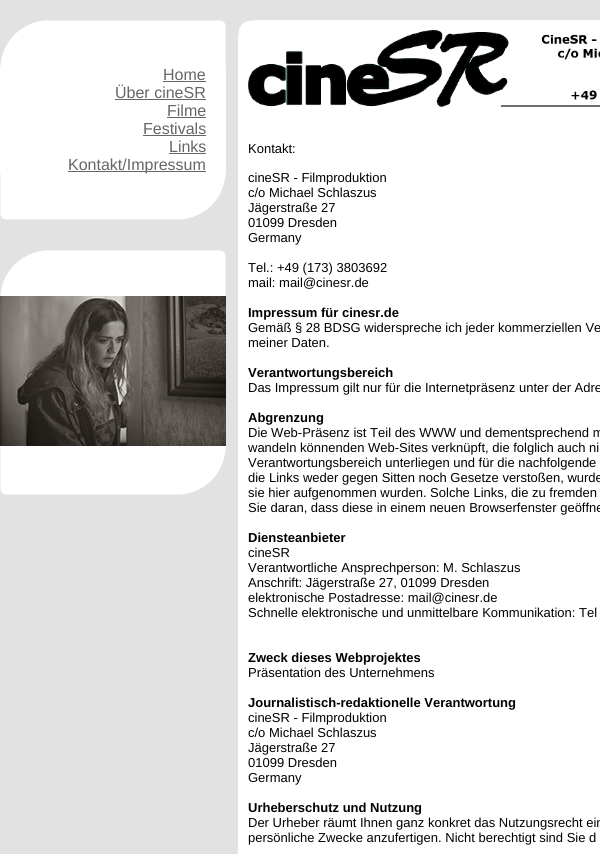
import math
import cairo

surface = cairo.ImageSurface(cairo.FORMAT_RGB24, 600, 854)
ctx = cairo.Context(surface)
options = cairo.FontOptions()
options.set_hint_metrics(cairo.HINT_METRICS_OFF)
options.set_hint_style(cairo.HINT_STYLE_NONE)
ctx.set_font_options(options)
ctx.set_miter_limit(4)


def picture(path, x, y, w, h):
    ctx.save()
    ctx.set_source_surface(cairo.ImageSurface.create_from_png(path), x, y)
    ctx.rectangle(x, y, w, h)
    ctx.fill()
    ctx.restore()


ctx.set_source_rgb(0.886, 0.886, 0.886)
ctx.paint()
picture("img1.png", 0, 20, 226, 46)
ctx.set_source_rgb(1, 1, 1)
ctx.rectangle(0, 66, 226, 108)
ctx.fill()
ctx.select_font_face("Liberation Sans")
ctx.set_font_size(16)
ctx.set_source_rgb(0.4, 0.4, 0.4)
ctx.move_to(163, 80)
ctx.show_text("Home")
ctx.rectangle(163, 81, 43, 1)
ctx.fill()
ctx.move_to(115, 98)
ctx.show_text("Über cineSR")
ctx.rectangle(115, 99, 91, 1)
ctx.fill()
ctx.move_to(167, 116)
ctx.show_text("Filme")
ctx.rectangle(167, 117, 39, 1)
ctx.fill()
ctx.move_to(143, 134)
ctx.show_text("Festivals")
ctx.rectangle(143, 135, 63, 1)
ctx.fill()
ctx.move_to(169, 152)
ctx.show_text("Links")
ctx.rectangle(169, 153, 37, 1)
ctx.fill()
ctx.rectangle(68, 171, 138, 1)
ctx.fill()
ctx.move_to(68, 170)
ctx.show_text("Kontakt/Impressum")
picture("img2.png", 0, 174, 226, 46)
picture("img1.png", 0, 250, 226, 46)
ctx.set_source_rgb(1, 1, 1)
ctx.rectangle(0, 446, 226, 3)
ctx.fill()
picture("img3.png", 0, 296, 226, 150)
picture("img2.png", 0, 449, 226, 46)
ctx.rectangle(238, 20, 362, 834)
ctx.fill()
picture("img4.png", 238, 20, 18, 18)
picture("img5.png", 248, 30, 352, 78)
ctx.set_font_size(13)
ctx.set_source_rgb(0, 0, 0)
ctx.move_to(248, 153)
ctx.show_text("Kontakt:")
ctx.move_to(248, 182)
ctx.show_text("cineSR - Filmproduktion")
ctx.move_to(248, 197)
ctx.show_text("c/o Michael Schlaszus")
ctx.move_to(248, 212)
ctx.show_text("Jägerstraße 27")
ctx.move_to(248, 227)
ctx.show_text("01099 Dresden")
ctx.move_to(248, 242)
ctx.show_text("Germany")
ctx.move_to(248, 272)
ctx.show_text("Tel.: +49 (173) 3803692")
ctx.move_to(248, 287)
ctx.show_text("mail: mail@cinesr.de")
ctx.select_font_face("Liberation Sans", cairo.FONT_SLANT_NORMAL, cairo.FONT_WEIGHT_BOLD)
ctx.move_to(248, 317)
ctx.show_text("Impressum für cinesr.de")
ctx.select_font_face("Liberation Sans")
ctx.move_to(248, 332)
ctx.show_text("Gemäß § 28 BDSG widerspreche ich jeder kommerziellen Ve")
ctx.move_to(248, 347)
ctx.show_text("meiner Daten.")
ctx.select_font_face("Liberation Sans", cairo.FONT_SLANT_NORMAL, cairo.FONT_WEIGHT_BOLD)
ctx.move_to(248, 377)
ctx.show_text("Verantwortungsbereich")
ctx.select_font_face("Liberation Sans")
ctx.move_to(248, 392)
ctx.show_text("Das Impressum gilt nur für die Internetpräsenz unter der Adre")
ctx.select_font_face("Liberation Sans", cairo.FONT_SLANT_NORMAL, cairo.FONT_WEIGHT_BOLD)
ctx.move_to(248, 422)
ctx.show_text("Abgrenzung")
ctx.select_font_face("Liberation Sans")
ctx.move_to(248, 437)
ctx.show_text("Die Web-Präsenz ist Teil des WWW und dementsprechend m")
ctx.move_to(248, 452)
ctx.show_text("wandeln könnenden Web-Sites verknüpft, die folglich auch ni")
ctx.move_to(248, 467)
ctx.show_text("Verantwortungsbereich unterliegen und für die nachfolgende")
ctx.move_to(248, 482)
ctx.show_text("die Links weder gegen Sitten noch Gesetze verstoßen, wurde")
ctx.move_to(248, 497)
ctx.show_text("sie hier aufgenommen wurden. Solche Links, die zu fremden")
ctx.move_to(248, 512)
ctx.show_text("Sie daran, dass diese in einem neuen Browserfenster geöffne")
ctx.select_font_face("Liberation Sans", cairo.FONT_SLANT_NORMAL, cairo.FONT_WEIGHT_BOLD)
ctx.move_to(248, 542)
ctx.show_text("Diensteanbieter")
ctx.select_font_face("Liberation Sans")
ctx.move_to(248, 557)
ctx.show_text("cineSR")
ctx.move_to(248, 572)
ctx.show_text("Verantwortliche Ansprechperson: M. Schlaszus")
ctx.move_to(248, 587)
ctx.show_text("Anschrift: Jägerstraße 27, 01099 Dresden")
ctx.move_to(248, 602)
ctx.show_text("elektronische Postadresse: mail@cinesr.de")
ctx.move_to(248, 617)
ctx.show_text("Schnelle elektronische und unmittelbare Kommunikation: Tel")
ctx.select_font_face("Liberation Sans", cairo.FONT_SLANT_NORMAL, cairo.FONT_WEIGHT_BOLD)
ctx.move_to(248, 662)
ctx.show_text("Zweck dieses Webprojektes")
ctx.select_font_face("Liberation Sans")
ctx.move_to(248, 677)
ctx.show_text("Präsentation des Unternehmens")
ctx.select_font_face("Liberation Sans", cairo.FONT_SLANT_NORMAL, cairo.FONT_WEIGHT_BOLD)
ctx.move_to(248, 707)
ctx.show_text("Journalistisch-redaktionelle Verantwortung")
ctx.select_font_face("Liberation Sans")
ctx.move_to(248, 722)
ctx.show_text("cineSR - Filmproduktion")
ctx.move_to(248, 737)
ctx.show_text("c/o Michael Schlaszus")
ctx.move_to(248, 752)
ctx.show_text("Jägerstraße 27")
ctx.move_to(248, 767)
ctx.show_text("01099 Dresden")
ctx.move_to(248, 782)
ctx.show_text("Germany")
ctx.select_font_face("Liberation Sans", cairo.FONT_SLANT_NORMAL, cairo.FONT_WEIGHT_BOLD)
ctx.move_to(248, 812)
ctx.show_text("Urheberschutz und Nutzung")
ctx.select_font_face("Liberation Sans")
ctx.move_to(248, 827)
ctx.show_text("Der Urheber räumt Ihnen ganz konkret das Nutzungsrecht ein")
ctx.move_to(248, 842)
ctx.show_text("persönliche Zwecke anzufertigen. Nicht berechtigt sind Sie d")
surface.write_to_png("page.png")
